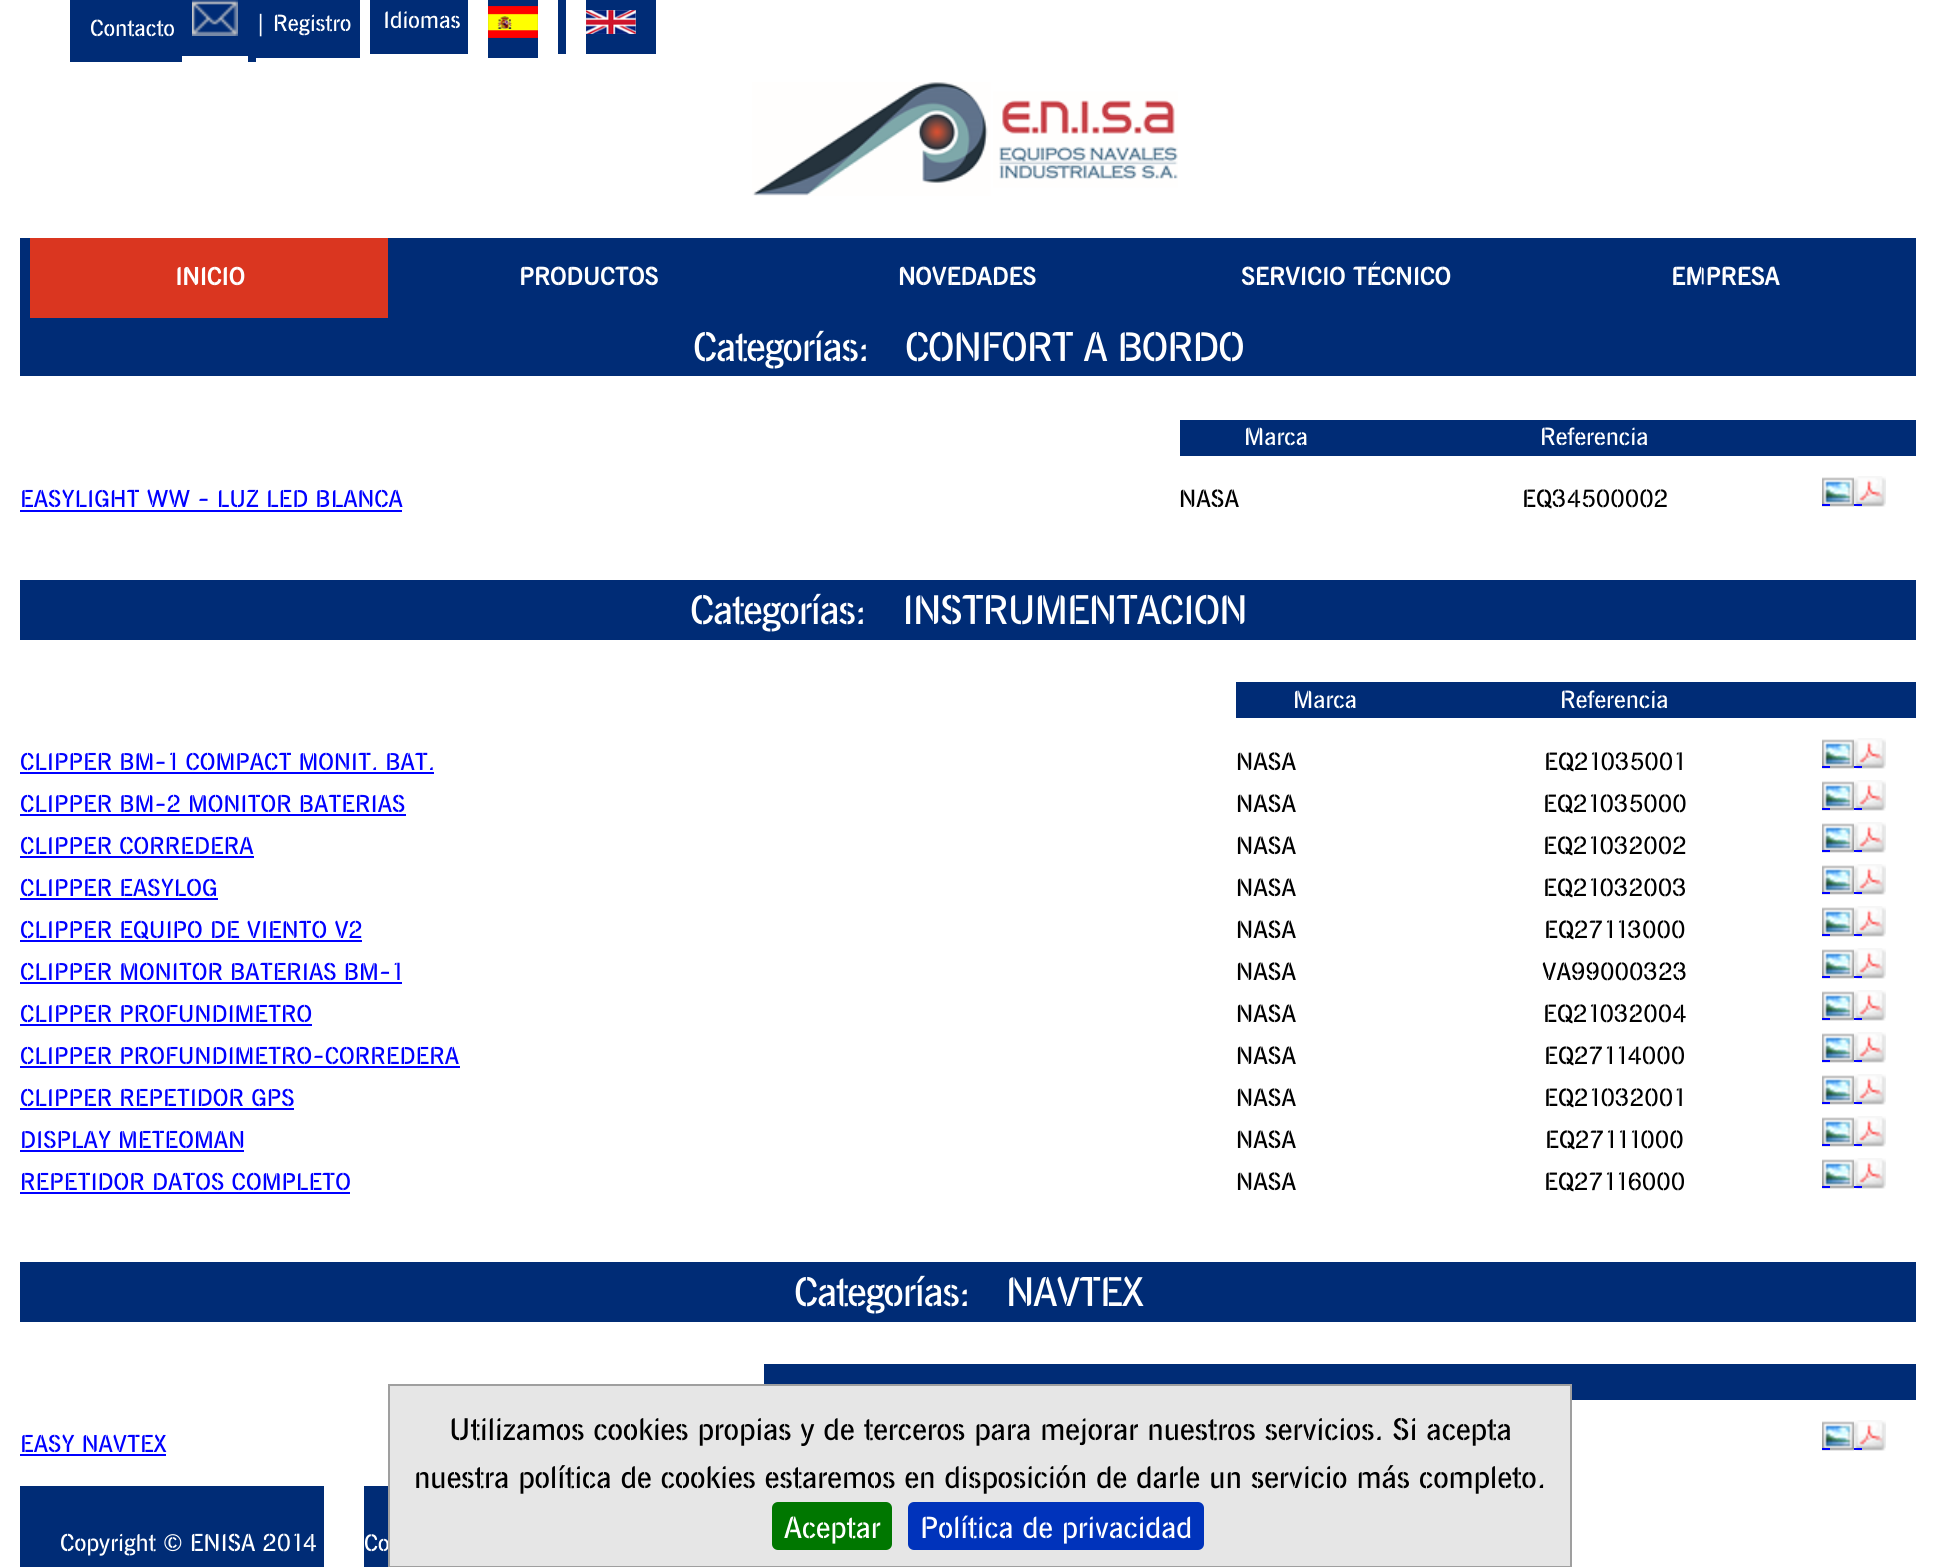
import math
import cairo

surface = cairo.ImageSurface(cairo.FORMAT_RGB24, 1935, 1567)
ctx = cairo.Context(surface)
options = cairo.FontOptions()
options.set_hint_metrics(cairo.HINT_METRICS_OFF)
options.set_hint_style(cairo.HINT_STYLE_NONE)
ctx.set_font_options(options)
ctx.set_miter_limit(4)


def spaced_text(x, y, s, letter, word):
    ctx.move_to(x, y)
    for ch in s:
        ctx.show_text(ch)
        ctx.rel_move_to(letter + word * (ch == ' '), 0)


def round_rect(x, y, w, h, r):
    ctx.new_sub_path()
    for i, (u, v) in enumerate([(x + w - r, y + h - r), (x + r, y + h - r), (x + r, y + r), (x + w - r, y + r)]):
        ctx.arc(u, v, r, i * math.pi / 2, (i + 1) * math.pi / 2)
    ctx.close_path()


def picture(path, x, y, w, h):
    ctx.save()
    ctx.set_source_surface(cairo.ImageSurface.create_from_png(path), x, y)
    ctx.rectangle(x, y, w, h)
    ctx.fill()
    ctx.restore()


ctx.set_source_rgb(1, 1, 1)
ctx.paint()
ctx.set_source_rgb(0, 0.173, 0.463)
ctx.rectangle(70, 0, 112, 62)
ctx.fill()
ctx.rectangle(182, 0, 66, 56)
ctx.fill()
ctx.rectangle(248, 0, 8, 62)
ctx.fill()
ctx.rectangle(256, 0, 104, 58)
ctx.fill()
ctx.rectangle(370, 0, 98, 54)
ctx.fill()
ctx.rectangle(488, 0, 50, 58)
ctx.fill()
ctx.rectangle(558, 0, 8, 54)
ctx.fill()
ctx.rectangle(586, 0, 70, 54)
ctx.fill()
ctx.select_font_face("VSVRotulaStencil")
ctx.set_font_size(22.5)
ctx.set_source_rgb(1, 1, 1)
ctx.move_to(90, 36)
ctx.show_text("Contacto")
picture("img1.png", 192, 0, 46, 36)
ctx.move_to(255, 31)
ctx.show_text("| Registro")
ctx.set_font_size(23)
ctx.move_to(383, 28)
ctx.show_text("Idiomas")
picture("img2.png", 488, 6, 50, 32)
picture("img3.png", 586, 10, 50, 24)
picture("img4.png", 752, 82, 426, 114)
ctx.set_source_rgb(0, 0.173, 0.463)
ctx.rectangle(20, 238, 1896, 138)
ctx.fill()
ctx.set_source_rgb(0.855, 0.212, 0.125)
ctx.rectangle(30, 238, 358, 80)
ctx.fill()
ctx.select_font_face("VSVRotulaStencil", cairo.FONT_SLANT_NORMAL, cairo.FONT_WEIGHT_BOLD)
ctx.set_font_size(24)
ctx.set_source_rgb(1, 1, 1)
ctx.move_to(175, 285)
ctx.show_text("INICIO")
ctx.set_font_size(24.25)
ctx.move_to(519, 285)
ctx.show_text("PRODUCTOS")
ctx.move_to(898, 285)
ctx.show_text("NOVEDADES")
ctx.move_to(1241, 285)
ctx.show_text("SERVICIO TÉCNICO")
ctx.move_to(1671, 285)
ctx.show_text("EMPRESA")
ctx.select_font_face("VSVRotulaStencil")
ctx.set_font_size(39.75)
spaced_text(693, 361, "Categorías: CONFORT A BORDO", -1.2, 0)
ctx.set_source_rgb(0, 0.173, 0.463)
ctx.rectangle(1180, 420, 736, 36)
ctx.fill()
ctx.set_font_size(24)
ctx.set_source_rgb(1, 1, 1)
ctx.move_to(1244, 445)
ctx.show_text("Marca")
ctx.move_to(1540, 445)
ctx.show_text("Referencia")
ctx.set_font_size(23.5)
ctx.set_source_rgb(0, 0, 1)
ctx.move_to(20, 507)
ctx.show_text("EASYLIGHT WW - LUZ LED BLANCA")
ctx.rectangle(20, 510, 382, 2)
ctx.fill()
ctx.set_font_size(24)
ctx.set_source_rgb(0, 0, 0)
ctx.move_to(1179, 507)
ctx.show_text("NASA")
ctx.move_to(1522, 507)
ctx.show_text("EQ34500002")
picture("img5.png", 1822, 477, 32, 30)
ctx.set_source_rgb(0, 0, 1)
ctx.rectangle(1822, 504, 8, 2)
ctx.fill()
picture("img6.png", 1854, 476, 32, 31)
ctx.rectangle(1854, 504, 8, 2)
ctx.fill()
ctx.set_source_rgb(0, 0.173, 0.463)
ctx.rectangle(20, 580, 1896, 60)
ctx.fill()
ctx.set_font_size(39.75)
ctx.set_source_rgb(1, 1, 1)
spaced_text(690, 624, "Categorías: INSTRUMENTACION", -1.2, 0)
ctx.set_source_rgb(0, 0.173, 0.463)
ctx.rectangle(1236, 682, 680, 36)
ctx.fill()
ctx.set_font_size(24)
ctx.set_source_rgb(1, 1, 1)
ctx.move_to(1293, 708)
ctx.show_text("Marca")
ctx.move_to(1560, 708)
ctx.show_text("Referencia")
ctx.set_font_size(23.5)
ctx.set_source_rgb(0, 0, 1)
ctx.move_to(20, 770)
ctx.show_text("CLIPPER BM-1 COMPACT MONIT. BAT.")
ctx.rectangle(20, 772, 414, 2)
ctx.fill()
ctx.set_font_size(24)
ctx.set_source_rgb(0, 0, 0)
ctx.move_to(1236, 770)
ctx.show_text("NASA")
ctx.move_to(1544, 770)
ctx.show_text("EQ21035001")
picture("img5.png", 1822, 739, 32, 30)
ctx.set_source_rgb(0, 0, 1)
ctx.rectangle(1822, 766, 8, 2)
ctx.fill()
picture("img6.png", 1854, 738, 32, 31)
ctx.rectangle(1854, 766, 8, 2)
ctx.fill()
ctx.set_font_size(23.5)
ctx.move_to(20, 812)
ctx.show_text("CLIPPER BM-2 MONITOR BATERIAS")
ctx.rectangle(20, 814, 386, 2)
ctx.fill()
ctx.set_font_size(24)
ctx.set_source_rgb(0, 0, 0)
ctx.move_to(1236, 812)
ctx.show_text("NASA")
ctx.move_to(1543, 812)
ctx.show_text("EQ21035000")
picture("img5.png", 1822, 781, 32, 30)
ctx.set_source_rgb(0, 0, 1)
ctx.rectangle(1822, 808, 8, 2)
ctx.fill()
picture("img6.png", 1854, 780, 32, 31)
ctx.rectangle(1854, 808, 8, 2)
ctx.fill()
ctx.set_font_size(23.5)
ctx.move_to(20, 854)
ctx.show_text("CLIPPER CORREDERA")
ctx.rectangle(20, 856, 234, 2)
ctx.fill()
ctx.set_font_size(24)
ctx.set_source_rgb(0, 0, 0)
ctx.move_to(1236, 854)
ctx.show_text("NASA")
ctx.move_to(1543, 854)
ctx.show_text("EQ21032002")
picture("img5.png", 1822, 823, 32, 30)
ctx.set_source_rgb(0, 0, 1)
ctx.rectangle(1822, 850, 8, 2)
ctx.fill()
picture("img6.png", 1854, 822, 32, 31)
ctx.rectangle(1854, 850, 8, 2)
ctx.fill()
ctx.set_font_size(23.5)
ctx.move_to(20, 896)
ctx.show_text("CLIPPER EASYLOG")
ctx.rectangle(20, 898, 198, 2)
ctx.fill()
ctx.set_font_size(24)
ctx.set_source_rgb(0, 0, 0)
ctx.move_to(1236, 896)
ctx.show_text("NASA")
ctx.move_to(1543, 896)
ctx.show_text("EQ21032003")
picture("img5.png", 1822, 865, 32, 30)
ctx.set_source_rgb(0, 0, 1)
ctx.rectangle(1822, 892, 8, 2)
ctx.fill()
picture("img6.png", 1854, 864, 32, 31)
ctx.rectangle(1854, 892, 8, 2)
ctx.fill()
ctx.set_font_size(23.5)
ctx.move_to(20, 938)
ctx.show_text("CLIPPER EQUIPO DE VIENTO V2")
ctx.rectangle(20, 940, 342, 2)
ctx.fill()
ctx.set_font_size(24)
ctx.set_source_rgb(0, 0, 0)
ctx.move_to(1236, 938)
ctx.show_text("NASA")
ctx.move_to(1544, 938)
ctx.show_text("EQ27113000")
picture("img5.png", 1822, 907, 32, 30)
ctx.set_source_rgb(0, 0, 1)
ctx.rectangle(1822, 934, 8, 2)
ctx.fill()
picture("img6.png", 1854, 906, 32, 31)
ctx.rectangle(1854, 934, 8, 2)
ctx.fill()
ctx.set_font_size(23.5)
ctx.move_to(20, 980)
ctx.show_text("CLIPPER MONITOR BATERIAS BM-1")
ctx.rectangle(20, 982, 382, 2)
ctx.fill()
ctx.set_font_size(24)
ctx.set_source_rgb(0, 0, 0)
ctx.move_to(1236, 980)
ctx.show_text("NASA")
ctx.move_to(1542, 980)
ctx.show_text("VA99000323")
picture("img5.png", 1822, 949, 32, 30)
ctx.set_source_rgb(0, 0, 1)
ctx.rectangle(1822, 976, 8, 2)
ctx.fill()
picture("img6.png", 1854, 948, 32, 31)
ctx.rectangle(1854, 976, 8, 2)
ctx.fill()
ctx.set_font_size(23.5)
ctx.move_to(20, 1022)
ctx.show_text("CLIPPER PROFUNDIMETRO")
ctx.rectangle(20, 1024, 292, 2)
ctx.fill()
ctx.set_font_size(24)
ctx.set_source_rgb(0, 0, 0)
ctx.move_to(1236, 1022)
ctx.show_text("NASA")
ctx.move_to(1543, 1022)
ctx.show_text("EQ21032004")
picture("img5.png", 1822, 991, 32, 30)
ctx.set_source_rgb(0, 0, 1)
ctx.rectangle(1822, 1018, 8, 2)
ctx.fill()
picture("img6.png", 1854, 990, 32, 31)
ctx.rectangle(1854, 1018, 8, 2)
ctx.fill()
ctx.set_font_size(23.5)
ctx.move_to(20, 1064)
ctx.show_text("CLIPPER PROFUNDIMETRO-CORREDERA")
ctx.rectangle(20, 1066, 440, 2)
ctx.fill()
ctx.set_font_size(24)
ctx.set_source_rgb(0, 0, 0)
ctx.move_to(1236, 1064)
ctx.show_text("NASA")
ctx.move_to(1544, 1064)
ctx.show_text("EQ27114000")
picture("img5.png", 1822, 1033, 32, 30)
ctx.set_source_rgb(0, 0, 1)
ctx.rectangle(1822, 1060, 8, 2)
ctx.fill()
picture("img6.png", 1854, 1032, 32, 31)
ctx.rectangle(1854, 1060, 8, 2)
ctx.fill()
ctx.set_font_size(23.5)
ctx.move_to(20, 1106)
ctx.show_text("CLIPPER REPETIDOR GPS")
ctx.rectangle(20, 1108, 274, 2)
ctx.fill()
ctx.set_font_size(24)
ctx.set_source_rgb(0, 0, 0)
ctx.move_to(1236, 1106)
ctx.show_text("NASA")
ctx.move_to(1544, 1106)
ctx.show_text("EQ21032001")
picture("img5.png", 1822, 1075, 32, 30)
ctx.set_source_rgb(0, 0, 1)
ctx.rectangle(1822, 1102, 8, 2)
ctx.fill()
picture("img6.png", 1854, 1074, 32, 31)
ctx.rectangle(1854, 1102, 8, 2)
ctx.fill()
ctx.set_font_size(23.5)
ctx.move_to(20, 1148)
ctx.show_text("DISPLAY METEOMAN")
ctx.rectangle(20, 1150, 224, 2)
ctx.fill()
ctx.set_font_size(24)
ctx.set_source_rgb(0, 0, 0)
ctx.move_to(1236, 1148)
ctx.show_text("NASA")
ctx.move_to(1545, 1148)
ctx.show_text("EQ27111000")
picture("img5.png", 1822, 1117, 32, 30)
ctx.set_source_rgb(0, 0, 1)
ctx.rectangle(1822, 1144, 8, 2)
ctx.fill()
picture("img6.png", 1854, 1116, 32, 31)
ctx.rectangle(1854, 1144, 8, 2)
ctx.fill()
ctx.set_font_size(23.5)
ctx.move_to(20, 1190)
ctx.show_text("REPETIDOR DATOS COMPLETO")
ctx.rectangle(20, 1192, 330, 2)
ctx.fill()
ctx.set_font_size(24)
ctx.set_source_rgb(0, 0, 0)
ctx.move_to(1236, 1190)
ctx.show_text("NASA")
ctx.move_to(1544, 1190)
ctx.show_text("EQ27116000")
picture("img5.png", 1822, 1159, 32, 30)
ctx.set_source_rgb(0, 0, 1)
ctx.rectangle(1822, 1186, 8, 2)
ctx.fill()
picture("img6.png", 1854, 1158, 32, 31)
ctx.rectangle(1854, 1186, 8, 2)
ctx.fill()
ctx.set_source_rgb(0, 0.173, 0.463)
ctx.rectangle(20, 1262, 1896, 60)
ctx.fill()
ctx.set_font_size(39.75)
ctx.set_source_rgb(1, 1, 1)
spaced_text(794, 1306, "Categorías: NAVTEX", -1.2, 0)
ctx.set_source_rgb(0, 0.173, 0.463)
ctx.rectangle(764, 1364, 324, 20)
ctx.fill()
ctx.rectangle(1088, 1364, 828, 36)
ctx.fill()
ctx.set_font_size(23.5)
ctx.set_source_rgb(0, 0, 1)
ctx.move_to(20, 1452)
ctx.show_text("EASY NAVTEX")
ctx.rectangle(20, 1454, 146, 2)
ctx.fill()
picture("img5.png", 1822, 1421, 32, 30)
ctx.rectangle(1822, 1448, 8, 2)
ctx.fill()
picture("img6.png", 1854, 1420, 32, 31)
ctx.rectangle(1854, 1448, 8, 2)
ctx.fill()
ctx.set_source_rgb(0, 0.173, 0.463)
ctx.rectangle(20, 1486, 304, 81)
ctx.fill()
ctx.set_font_size(23.6)
ctx.set_source_rgb(1, 1, 1)
ctx.move_to(60, 1551)
ctx.show_text("Copyright © ENISA 2014")
ctx.set_source_rgb(0, 0.173, 0.463)
ctx.rectangle(364, 1486, 24, 81)
ctx.fill()
ctx.set_font_size(23)
ctx.set_source_rgb(1, 1, 1)
ctx.move_to(364, 1551)
ctx.show_text("Co")
ctx.set_source_rgb(0.902, 0.902, 0.902)
ctx.rectangle(389, 1385, 1182, 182)
ctx.fill_preserve()
ctx.set_source_rgb(0.624, 0.624, 0.624)
ctx.stroke()
ctx.set_font_size(30.1)
ctx.set_source_rgb(0, 0, 0)
ctx.move_to(449, 1440)
ctx.show_text("Utilizamos cookies propias y de terceros para mejorar nuestros servicios. Si acepta")
ctx.move_to(414, 1488)
ctx.show_text("nuestra política de cookies estaremos en disposición de darle un servicio más completo.")
ctx.set_source_rgb(0, 0.467, 0)
round_rect(772, 1502, 120, 48, 6)
ctx.fill()
ctx.set_font_size(29.5)
ctx.set_source_rgb(1, 1, 1)
ctx.move_to(784, 1538)
ctx.show_text("Aceptar")
ctx.set_source_rgb(0, 0.2, 0.733)
round_rect(908, 1502, 296, 48, 6)
ctx.fill()
ctx.set_source_rgb(1, 1, 1)
ctx.move_to(920, 1538)
ctx.show_text("Política de privacidad")
surface.write_to_png("page.png")
